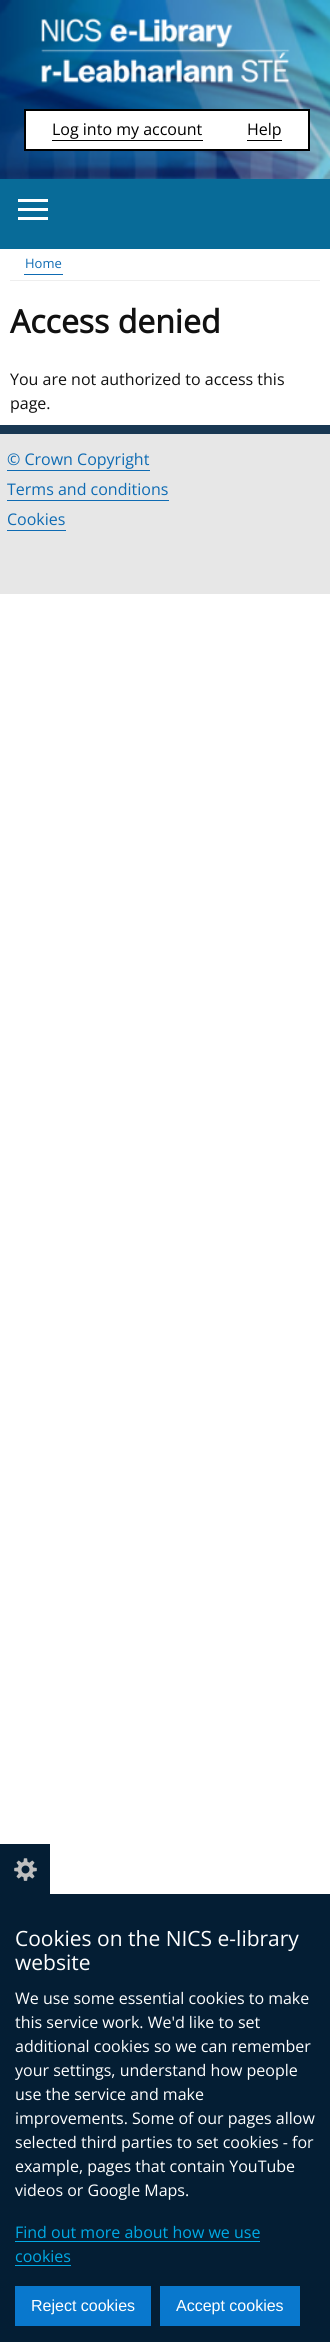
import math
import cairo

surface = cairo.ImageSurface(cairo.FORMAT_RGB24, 330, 2342)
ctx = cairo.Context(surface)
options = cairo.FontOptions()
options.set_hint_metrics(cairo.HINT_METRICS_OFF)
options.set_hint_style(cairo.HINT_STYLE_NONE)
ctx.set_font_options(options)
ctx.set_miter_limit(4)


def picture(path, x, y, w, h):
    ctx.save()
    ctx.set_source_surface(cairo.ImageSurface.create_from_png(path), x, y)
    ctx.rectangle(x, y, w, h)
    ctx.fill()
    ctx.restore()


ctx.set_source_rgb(1, 1, 1)
ctx.paint()
picture("img1.png", 0, 0, 330, 179)
picture("img2.png", 41, 18, 249, 65)
ctx.set_source_rgb(1, 1, 1)
ctx.rectangle(25, 110, 284, 40)
ctx.fill_preserve()
ctx.set_source_rgb(0, 0, 0)
ctx.stroke()
ctx.select_font_face("Open Sans")
ctx.set_font_size(16)
ctx.move_to(52, 135)
ctx.show_text("Log into my account")
ctx.rectangle(52, 140, 151, 1)
ctx.fill()
ctx.move_to(247, 135)
ctx.show_text("Help")
ctx.rectangle(247, 140, 35, 1)
ctx.fill()
ctx.set_source_rgb(0.035, 0.42, 0.596)
ctx.rectangle(0, 179, 330, 70)
ctx.fill()
ctx.set_source_rgb(1, 1, 1)
ctx.rectangle(18, 208, 30, 3)
ctx.fill()
ctx.rectangle(18, 199, 30, 3)
ctx.fill()
ctx.rectangle(18, 217, 30, 3)
ctx.fill()
ctx.set_source_rgb(0.933, 0.933, 0.933)
ctx.rectangle(10, 280, 310, 1)
ctx.fill()
ctx.set_source_rgb(0.055, 0.42, 0.702)
ctx.rectangle(24, 274, 39, 1)
ctx.fill()
ctx.set_font_size(13)
ctx.move_to(25, 268)
ctx.show_text("Home")
ctx.select_font_face("Open Sans", cairo.FONT_SLANT_NORMAL, cairo.FONT_WEIGHT_BOLD)
ctx.set_font_size(32)
ctx.set_source_rgb(0.067, 0.067, 0.067)
ctx.move_to(10, 333)
ctx.show_text("Access denied")
ctx.select_font_face("Open Sans")
ctx.set_font_size(16)
ctx.move_to(10, 385)
ctx.show_text("You are not authorized to access this")
ctx.move_to(10, 409)
ctx.show_text("page.")
ctx.set_source_rgb(0.906, 0.906, 0.906)
ctx.rectangle(0, 434, 330, 160)
ctx.fill()
ctx.set_source_rgb(0.098, 0.22, 0.325)
ctx.rectangle(0, 425, 330, 9)
ctx.fill()
ctx.set_source_rgb(0.055, 0.42, 0.702)
ctx.move_to(7, 465)
ctx.show_text("© Crown Copyright")
ctx.rectangle(7, 470, 143, 1)
ctx.fill()
ctx.move_to(7, 495)
ctx.show_text("Terms and conditions")
ctx.rectangle(7, 500, 162, 1)
ctx.fill()
ctx.move_to(7, 525)
ctx.show_text("Cookies")
ctx.rectangle(7, 530, 59, 1)
ctx.fill()
ctx.set_source_rgb(0.016, 0.118, 0.204)
ctx.rectangle(0, 1844, 50, 50)
ctx.fill()
picture("img3.png", 14, 1858, 23, 23)
ctx.rectangle(0, 1894, 330, 448)
ctx.fill()
ctx.set_font_size(21)
ctx.set_source_rgb(1, 1, 1)
ctx.move_to(15, 1946)
ctx.show_text("Cookies on the NICS e-library")
ctx.move_to(15, 1970)
ctx.show_text("website")
ctx.set_font_size(16)
ctx.move_to(15, 2004)
ctx.show_text("We use some essential cookies to make")
ctx.move_to(15, 2028)
ctx.show_text("this service work. We'd like to set")
ctx.move_to(15, 2052)
ctx.show_text("additional cookies so we can remember")
ctx.move_to(15, 2076)
ctx.show_text("your settings, understand how people")
ctx.move_to(15, 2100)
ctx.show_text("use the service and make")
ctx.move_to(15, 2124)
ctx.show_text("improvements. Some of our pages allow")
ctx.move_to(15, 2148)
ctx.show_text("selected third parties to set cookies - for")
ctx.move_to(15, 2172)
ctx.show_text("example, pages that contain YouTube")
ctx.move_to(15, 2196)
ctx.show_text("videos or Google Maps.")
ctx.set_source_rgb(0, 0.667, 0.898)
ctx.move_to(15, 2238)
ctx.show_text("Find out more about how we use")
ctx.rectangle(15, 2241, 245, 1)
ctx.fill()
ctx.move_to(15, 2262)
ctx.show_text("cookies")
ctx.rectangle(15, 2265, 56, 1)
ctx.fill()
ctx.set_source_rgb(0.039, 0.471, 0.804)
ctx.rectangle(15, 2286, 136, 40)
ctx.fill()
ctx.select_font_face("Liberation Sans")
ctx.set_source_rgb(1, 1, 1)
ctx.move_to(31, 2311)
ctx.show_text("Reject cookies")
ctx.set_source_rgb(0.039, 0.471, 0.804)
ctx.rectangle(160, 2286, 140, 40)
ctx.fill()
ctx.set_source_rgb(1, 1, 1)
ctx.move_to(176, 2311)
ctx.show_text("Accept cookies")
surface.write_to_png("page.png")
